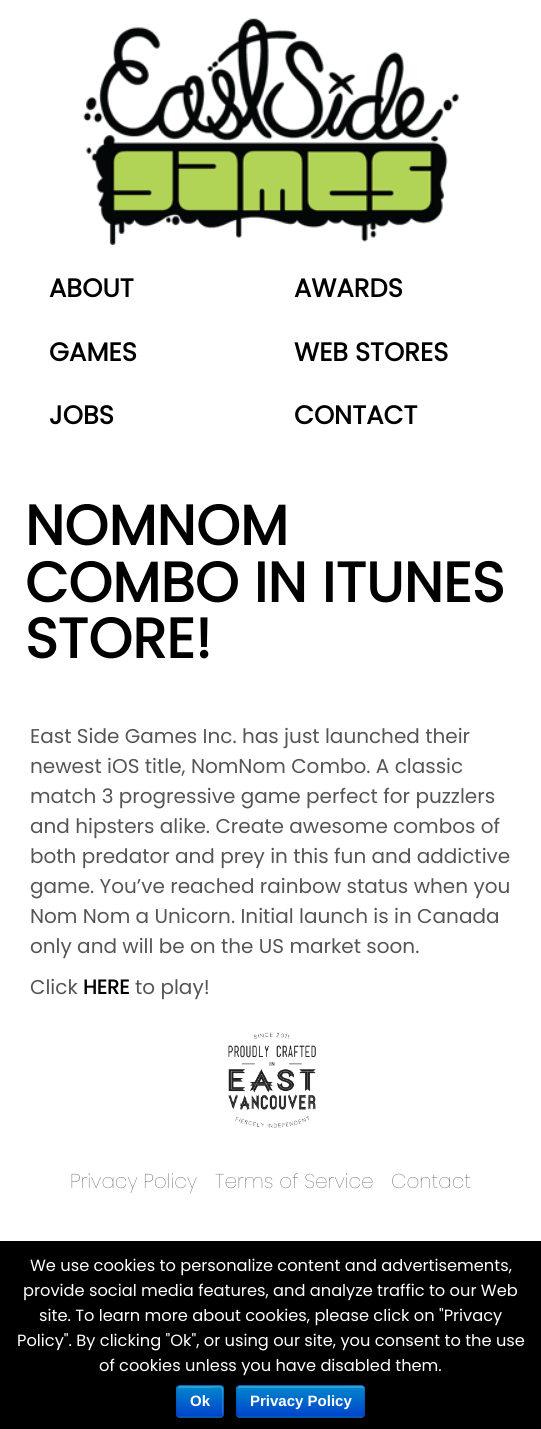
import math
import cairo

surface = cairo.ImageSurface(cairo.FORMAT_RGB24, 541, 1429)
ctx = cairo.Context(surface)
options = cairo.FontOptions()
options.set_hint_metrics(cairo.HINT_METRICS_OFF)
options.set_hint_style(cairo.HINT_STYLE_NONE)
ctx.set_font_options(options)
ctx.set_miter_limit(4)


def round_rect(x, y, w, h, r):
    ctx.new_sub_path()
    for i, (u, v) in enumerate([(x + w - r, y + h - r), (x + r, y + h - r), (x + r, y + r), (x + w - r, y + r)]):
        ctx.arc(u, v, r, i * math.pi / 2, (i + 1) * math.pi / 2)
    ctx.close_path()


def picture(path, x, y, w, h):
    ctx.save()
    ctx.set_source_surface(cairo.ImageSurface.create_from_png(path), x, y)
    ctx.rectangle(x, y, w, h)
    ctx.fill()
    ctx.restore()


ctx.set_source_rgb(1, 1, 1)
ctx.paint()
picture("img1.png", 83, 18, 376, 227)
ctx.select_font_face("Poppins", cairo.FONT_SLANT_NORMAL, cairo.FONT_WEIGHT_BOLD)
ctx.set_font_size(25.75)
ctx.set_source_rgb(0, 0, 0)
ctx.move_to(49, 297)
ctx.show_text("ABOUT")
ctx.move_to(294, 297)
ctx.show_text("AWARDS")
ctx.move_to(49, 361)
ctx.show_text("GAMES")
ctx.move_to(294, 361)
ctx.show_text("WEB STORES")
ctx.move_to(49, 424)
ctx.show_text("JOBS")
ctx.move_to(294, 424)
ctx.show_text("CONTACT")
ctx.set_font_size(56)
ctx.move_to(25, 545)
ctx.show_text("NOMNOM")
ctx.move_to(25, 602)
ctx.show_text("COMBO IN ITUNES")
ctx.move_to(25, 658)
ctx.show_text("STORE!")
ctx.select_font_face("Poppins")
ctx.set_font_size(20)
ctx.set_source_rgb(0.333, 0.333, 0.333)
ctx.move_to(30, 743)
ctx.show_text("East Side Games Inc. has just launched their")
ctx.move_to(30, 773)
ctx.show_text("newest iOS title, NomNom Combo. A classic")
ctx.move_to(30, 803)
ctx.show_text("match 3 progressive game perfect for puzzlers")
ctx.move_to(30, 833)
ctx.show_text("and hipsters alike. Create awesome combos of")
ctx.move_to(30, 863)
ctx.show_text("both predator and prey in this fun and addictive")
ctx.move_to(30, 893)
ctx.show_text("game. You’ve reached rainbow status when you")
ctx.move_to(30, 923)
ctx.show_text("Nom Nom a Unicorn. Initial launch is in Canada")
ctx.move_to(30, 953)
ctx.show_text("only and will be on the US market soon.")
ctx.move_to(30, 994)
ctx.show_text("Click")
ctx.select_font_face("Poppins", cairo.FONT_SLANT_NORMAL, cairo.FONT_WEIGHT_BOLD)
ctx.set_source_rgb(0, 0, 0)
ctx.move_to(83, 994)
ctx.show_text("HERE")
ctx.select_font_face("Poppins")
ctx.set_source_rgb(0.333, 0.333, 0.333)
ctx.move_to(135, 994)
ctx.show_text("to play!")
picture("img2.png", 228, 1032, 88, 96)
ctx.select_font_face("Poppins Thin")
ctx.set_source_rgb(0.278, 0.278, 0.278)
ctx.move_to(70, 1188)
ctx.show_text("Privacy Policy")
ctx.move_to(215, 1188)
ctx.show_text("Terms of Service")
ctx.move_to(391, 1188)
ctx.show_text("Contact")
ctx.set_source_rgb(0, 0, 0)
ctx.rectangle(0, 1241, 541, 188)
ctx.fill()
ctx.select_font_face("Poppins")
ctx.set_font_size(16.25)
ctx.set_source_rgb(1, 1, 1)
ctx.move_to(30, 1271)
ctx.show_text("We use cookies to personalize content and advertisements,")
ctx.move_to(23, 1296)
ctx.show_text("provide social media features, and analyze traffic to our Web")
ctx.move_to(39, 1321)
ctx.show_text("site. To learn more about cookies, please click on \"Privacy")
ctx.move_to(17, 1346)
ctx.show_text("Policy\". By clicking \"Ok\", or using our site, you consent to the use")
ctx.move_to(99, 1371)
ctx.show_text("of cookies unless you have disabled them.")
ctx.set_source_rgb(0, 0.427, 0.8)
round_rect(176, 1385, 48, 33, 4)
ctx.fill()
ctx.save()
round_rect(176, 1385, 48, 33, 4)
ctx.clip()
gradient = cairo.LinearGradient(200, 1386, 200, 1416)
gradient.add_color_stop_rgba(0, 0, 0.533, 0.8, 1)
gradient.add_color_stop_rgba(1, 0, 0.267, 0.8, 1)
ctx.set_source(gradient)
ctx.rectangle(176, 1386, 48, 30)
ctx.fill()
ctx.restore()
ctx.set_source_rgba(1, 1, 1, 0.2)
ctx.new_path()
ctx.move_to(180, 1388)
ctx.line_to(207, 1388)
ctx.curve_to(223, 1388, 222, 1384, 222, 1398)
ctx.line_to(222, 1416)
ctx.curve_to(224, 1414, 223, 1404, 223, 1401)
ctx.curve_to(223, 1383, 226, 1386, 207, 1386)
ctx.line_to(187, 1386)
ctx.curve_to(182, 1386, 178, 1384, 178, 1390)
ctx.curve_to(178, 1389, 179, 1388, 180, 1388)
ctx.close_path()
ctx.fill()
ctx.new_path()
ctx.move_to(222, 1416)
ctx.line_to(220, 1417)
ctx.line_to(180, 1417)
ctx.line_to(178, 1416)
ctx.set_source_rgb(0, 0.322, 0.6)
ctx.set_line_width(1.2)
ctx.stroke()
ctx.new_path()
ctx.move_to(178, 1416)
ctx.curve_to(175.5, 1414, 177, 1404, 177, 1401)
ctx.curve_to(177, 1386.5, 173.5, 1385.5, 186.5, 1385.5)
ctx.line_to(213.5, 1385.5)
ctx.curve_to(226.5, 1385.5, 223, 1386.5, 223, 1401)
ctx.curve_to(223, 1404, 224.5, 1414, 222, 1416)
ctx.set_source_rgba(0, 0, 0, 0.1)
ctx.stroke()
ctx.select_font_face("Liberation Sans", cairo.FONT_SLANT_NORMAL, cairo.FONT_WEIGHT_BOLD)
ctx.set_font_size(15)
ctx.set_source_rgb(1, 1, 1)
ctx.move_to(190, 1406)
ctx.show_text("Ok")
ctx.set_source_rgb(0, 0.427, 0.8)
round_rect(236, 1385, 129, 33, 4)
ctx.fill()
ctx.save()
round_rect(236, 1385, 129, 33, 4)
ctx.clip()
gradient = cairo.LinearGradient(301, 1386, 301, 1416)
gradient.add_color_stop_rgba(0, 0, 0.533, 0.8, 1)
gradient.add_color_stop_rgba(1, 0, 0.267, 0.8, 1)
ctx.set_source(gradient)
ctx.rectangle(236, 1386, 129, 30)
ctx.fill()
ctx.restore()
ctx.set_source_rgba(1, 1, 1, 0.2)
ctx.new_path()
ctx.move_to(240, 1388)
ctx.line_to(361, 1388)
ctx.curve_to(363, 1388, 364, 1389, 364, 1390)
ctx.line_to(364, 1388)
ctx.curve_to(364, 1387, 363, 1386, 362, 1386)
ctx.line_to(240, 1386)
ctx.curve_to(239, 1386, 238, 1387, 238, 1388)
ctx.line_to(238, 1390)
ctx.curve_to(238, 1389, 239, 1388, 240, 1388)
ctx.close_path()
ctx.fill()
ctx.new_path()
ctx.move_to(363.5, 1416)
ctx.line_to(361, 1417)
ctx.line_to(240, 1417)
ctx.line_to(238, 1416)
ctx.set_source_rgb(0, 0.322, 0.6)
ctx.stroke()
ctx.new_path()
ctx.move_to(238, 1416)
ctx.curve_to(235.5, 1414, 237, 1408, 237, 1405.5)
ctx.curve_to(237, 1380.5, 232.5, 1385.5, 260, 1385.5)
ctx.line_to(341, 1385.5)
ctx.curve_to(368.5, 1385.5, 364.5, 1380.5, 364.5, 1405.5)
ctx.curve_to(364.5, 1408, 365.5, 1414, 363.5, 1416)
ctx.set_source_rgba(0, 0, 0, 0.1)
ctx.stroke()
ctx.set_source_rgb(1, 1, 1)
ctx.move_to(250, 1406)
ctx.show_text("Privacy Policy")
surface.write_to_png("page.png")
